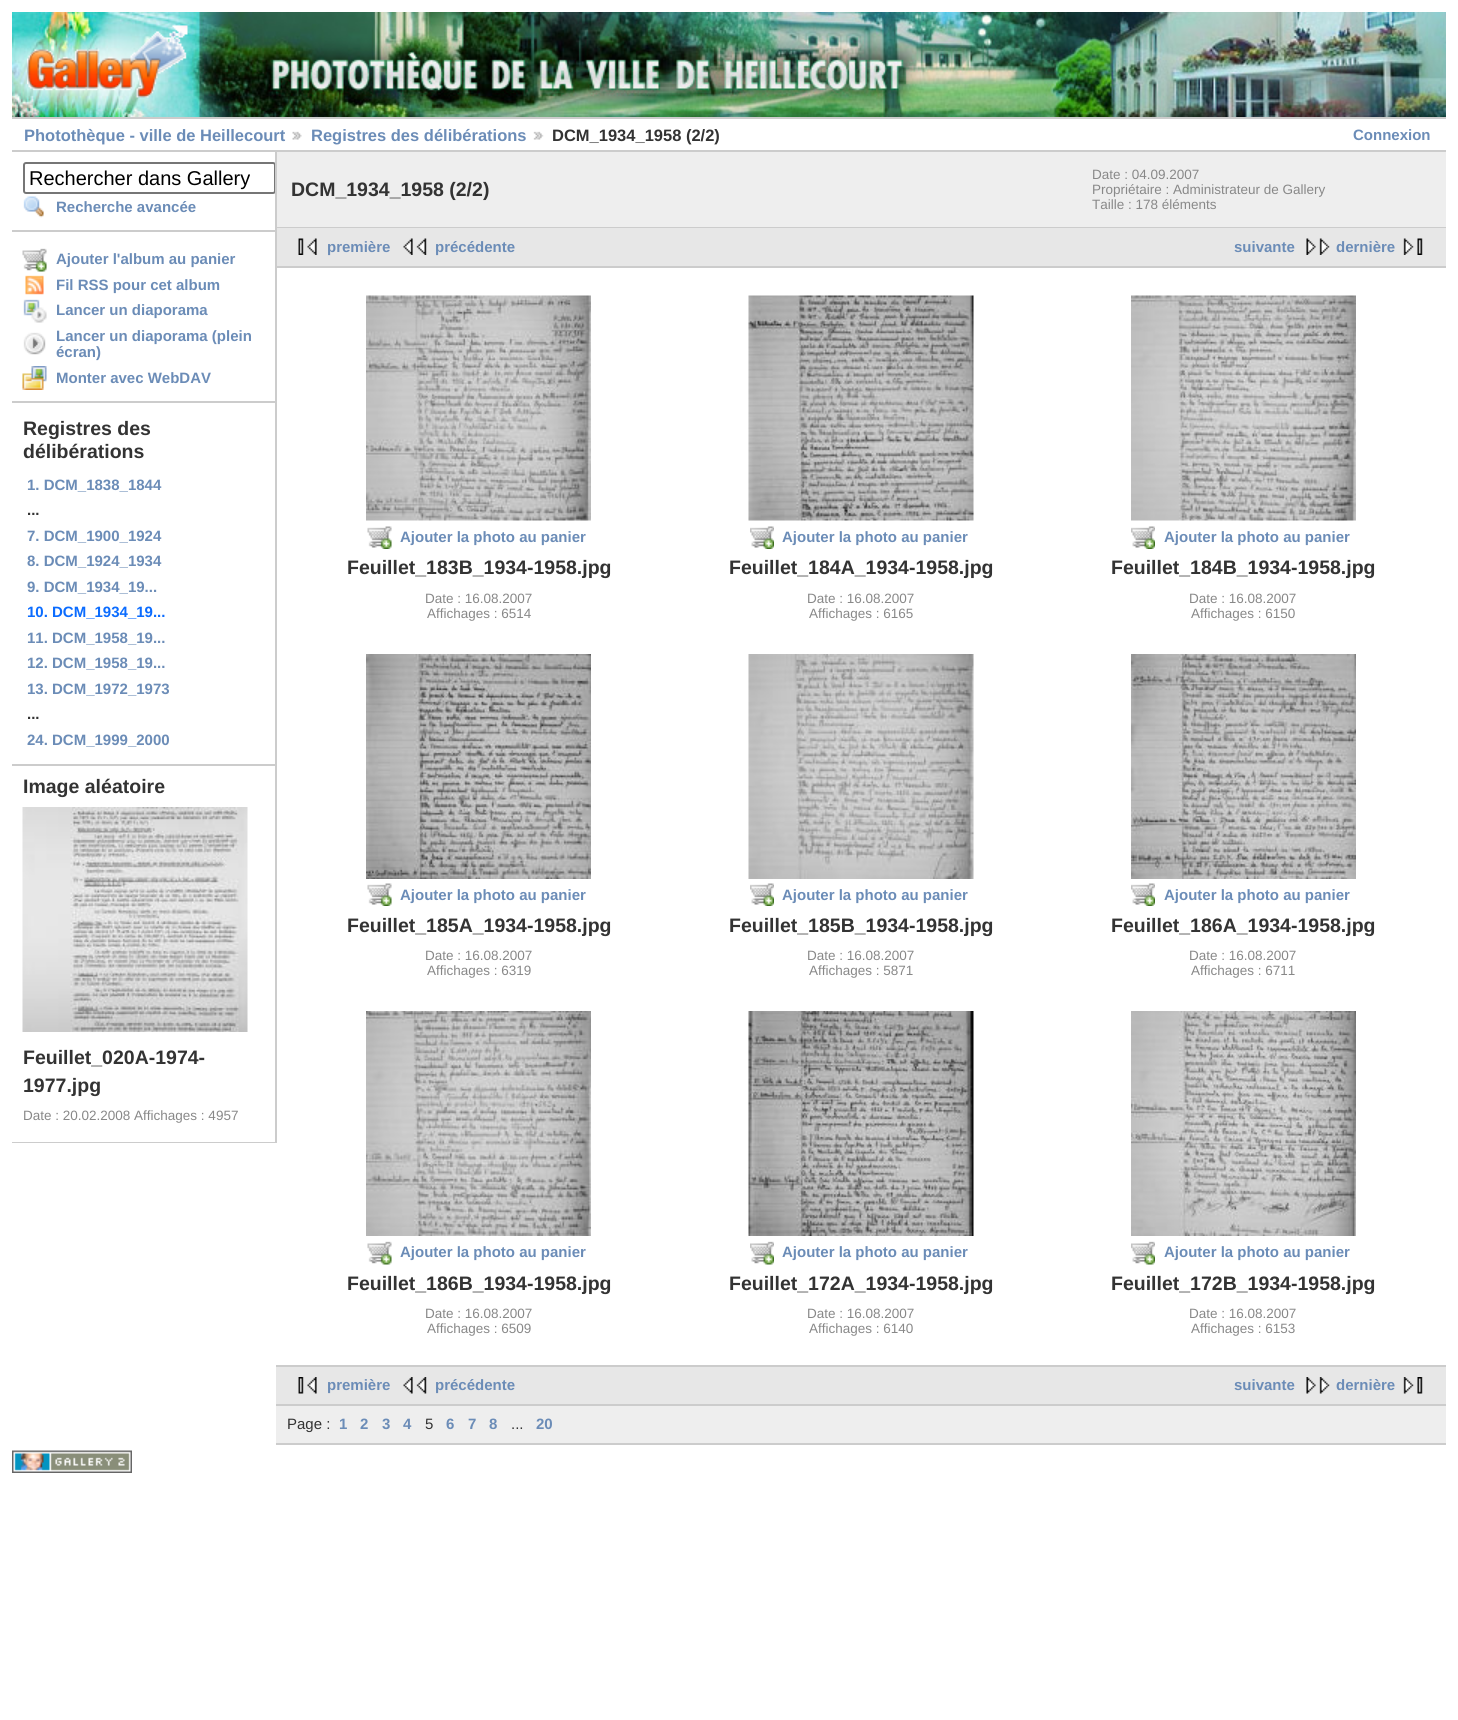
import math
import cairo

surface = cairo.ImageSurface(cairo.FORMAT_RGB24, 1458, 1720)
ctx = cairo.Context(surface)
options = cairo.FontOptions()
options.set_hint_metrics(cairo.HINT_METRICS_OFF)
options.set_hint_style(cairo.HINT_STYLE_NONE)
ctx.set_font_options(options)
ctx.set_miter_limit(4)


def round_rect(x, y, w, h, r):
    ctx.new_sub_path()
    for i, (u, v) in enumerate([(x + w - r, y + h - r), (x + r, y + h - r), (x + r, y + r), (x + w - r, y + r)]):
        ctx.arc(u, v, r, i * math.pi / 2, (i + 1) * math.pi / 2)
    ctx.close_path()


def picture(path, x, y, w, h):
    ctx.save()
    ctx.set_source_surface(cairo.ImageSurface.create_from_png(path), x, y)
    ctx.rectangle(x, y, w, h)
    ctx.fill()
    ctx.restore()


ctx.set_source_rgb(1, 1, 1)
ctx.paint()
picture("img1.png", 12, 12, 1434, 105)
picture("img2.png", 27, 25, 161, 73)
ctx.set_source_rgb(0.8, 0.8, 0.8)
ctx.rectangle(12, 117, 1434, 2)
ctx.fill()
ctx.rectangle(12, 150, 1434, 2)
ctx.fill()
ctx.select_font_face("Liberation Sans", cairo.FONT_SLANT_NORMAL, cairo.FONT_WEIGHT_BOLD)
ctx.set_font_size(16.5)
ctx.set_source_rgb(0.42, 0.549, 0.718)
ctx.move_to(24, 141)
ctx.show_text("Photothèque - ville de Heillecourt")
picture("img3.png", 292, 131, 10, 9)
ctx.move_to(311, 141)
ctx.show_text("Registres des délibérations")
picture("img4.png", 533, 131, 11, 9)
ctx.set_source_rgb(0.2, 0.2, 0.2)
ctx.move_to(552, 141)
ctx.show_text("DCM_1934_1958 (2/2)")
ctx.set_font_size(15)
ctx.set_source_rgb(0.42, 0.549, 0.718)
ctx.move_to(1353, 140)
ctx.show_text("Connexion")
ctx.set_source_rgb(0.8, 0.8, 0.8)
ctx.rectangle(276, 227, 1170, 1)
ctx.fill()
ctx.rectangle(276, 266, 1170, 2)
ctx.fill()
ctx.rectangle(275, 152, 2, 991)
ctx.fill()
ctx.rectangle(12, 230, 263, 2)
ctx.fill()
ctx.save()
ctx.rectangle(12, 152, 263, 991)
ctx.clip()
round_rect(24, 163, 251, 30, 2)
ctx.set_source_rgb(0.463, 0.463, 0.463)
ctx.stroke()
ctx.restore()
ctx.select_font_face("Liberation Sans")
ctx.set_font_size(20)
ctx.set_source_rgb(0, 0, 0)
ctx.move_to(29, 185)
ctx.show_text("Rechercher dans Gallery")
picture("img5.png", 23, 196, 21, 22)
ctx.select_font_face("Liberation Sans", cairo.FONT_SLANT_NORMAL, cairo.FONT_WEIGHT_BOLD)
ctx.set_font_size(15)
ctx.set_source_rgb(0.42, 0.549, 0.718)
ctx.move_to(56, 212)
ctx.show_text("Recherche avancée")
ctx.set_source_rgb(0.8, 0.8, 0.8)
ctx.rectangle(12, 401, 263, 2)
ctx.fill()
picture("img6.png", 22, 248, 25, 24)
ctx.set_source_rgb(0.42, 0.549, 0.718)
ctx.move_to(56, 264)
ctx.show_text("Ajouter l'album au panier")
picture("img7.png", 25, 275, 19, 20)
ctx.move_to(56, 290)
ctx.show_text("Fil RSS pour cet album")
picture("img8.png", 23, 299, 24, 24)
ctx.move_to(56, 315)
ctx.show_text("Lancer un diaporama")
picture("img9.png", 23, 332, 23, 23)
ctx.move_to(56, 341)
ctx.show_text("Lancer un diaporama (plein")
ctx.move_to(56, 357)
ctx.show_text("écran)")
picture("img10.png", 22, 366, 25, 24)
ctx.move_to(56, 383)
ctx.show_text("Monter avec WebDAV")
ctx.set_source_rgb(0.8, 0.8, 0.8)
ctx.rectangle(12, 764, 263, 2)
ctx.fill()
ctx.set_font_size(19.5)
ctx.set_source_rgb(0.2, 0.2, 0.2)
ctx.move_to(23, 435)
ctx.show_text("Registres des")
ctx.move_to(23, 458)
ctx.show_text("délibérations")
ctx.set_font_size(15)
ctx.set_source_rgb(0.42, 0.549, 0.718)
ctx.move_to(27, 490)
ctx.show_text("1. DCM_1838_1844")
ctx.set_source_rgb(0.2, 0.2, 0.2)
ctx.move_to(27, 515)
ctx.show_text("...")
ctx.set_source_rgb(0.42, 0.549, 0.718)
ctx.move_to(27, 541)
ctx.show_text("7. DCM_1900_1924")
ctx.move_to(27, 566)
ctx.show_text("8. DCM_1924_1934")
ctx.move_to(27, 592)
ctx.show_text("9. DCM_1934_19...")
ctx.set_source_rgb(0.043, 0.424, 1)
ctx.move_to(27, 617)
ctx.show_text("10. DCM_1934_19...")
ctx.set_source_rgb(0.42, 0.549, 0.718)
ctx.move_to(27, 643)
ctx.show_text("11. DCM_1958_19...")
ctx.move_to(27, 668)
ctx.show_text("12. DCM_1958_19...")
ctx.move_to(27, 694)
ctx.show_text("13. DCM_1972_1973")
ctx.set_source_rgb(0.2, 0.2, 0.2)
ctx.move_to(27, 719)
ctx.show_text("...")
ctx.set_source_rgb(0.42, 0.549, 0.718)
ctx.move_to(27, 745)
ctx.show_text("24. DCM_1999_2000")
ctx.set_source_rgb(0.8, 0.8, 0.8)
ctx.rectangle(12, 1142, 263, 1)
ctx.fill()
ctx.set_font_size(19.5)
ctx.set_source_rgb(0.2, 0.2, 0.2)
ctx.move_to(23, 793)
ctx.show_text("Image aléatoire")
picture("img11.png", 22, 807, 226, 225)
ctx.move_to(23, 1064)
ctx.show_text("Feuillet_020A-1974-")
ctx.move_to(23, 1092)
ctx.show_text("1977.jpg")
ctx.select_font_face("Liberation Sans")
ctx.set_font_size(13.5)
ctx.set_source_rgb(0.533, 0.533, 0.533)
ctx.move_to(23, 1120)
ctx.show_text("Date : 20.02.2008 Affichages : 4957")
ctx.set_source_rgb(0.933, 0.933, 0.933)
ctx.rectangle(277, 152, 1169, 75)
ctx.fill()
ctx.select_font_face("Liberation Sans", cairo.FONT_SLANT_NORMAL, cairo.FONT_WEIGHT_BOLD)
ctx.set_font_size(19.5)
ctx.set_source_rgb(0.2, 0.2, 0.2)
ctx.move_to(291, 196)
ctx.show_text("DCM_1934_1958 (2/2)")
ctx.select_font_face("Liberation Sans")
ctx.set_font_size(13.5)
ctx.set_source_rgb(0.533, 0.533, 0.533)
ctx.move_to(1092, 179)
ctx.show_text("Date : 04.09.2007")
ctx.move_to(1092, 194)
ctx.show_text("Propriétaire : Administrateur de Gallery")
ctx.move_to(1092, 209)
ctx.show_text("Taille : 178 éléments")
ctx.set_source_rgb(0.906, 0.906, 0.906)
ctx.rectangle(277, 228, 1169, 38)
ctx.fill()
picture("img12.png", 298, 238, 19, 17)
ctx.select_font_face("Liberation Sans", cairo.FONT_SLANT_NORMAL, cairo.FONT_WEIGHT_BOLD)
ctx.set_font_size(15)
ctx.set_source_rgb(0.42, 0.549, 0.718)
ctx.move_to(327, 252)
ctx.show_text("première")
picture("img13.png", 403, 238, 24, 17)
ctx.move_to(435, 252)
ctx.show_text("précédente")
ctx.move_to(1234, 252)
ctx.show_text("suivante")
picture("img14.png", 1306, 238, 24, 17)
ctx.move_to(1336, 252)
ctx.show_text("dernière")
picture("img15.png", 1403, 238, 20, 17)
ctx.set_source_rgb(0.8, 0.8, 0.8)
ctx.rectangle(276, 1365, 1170, 2)
ctx.fill()
picture("img16.png", 366, 295, 225, 226)
picture("img17.png", 367, 526, 25, 23)
ctx.set_source_rgb(0.42, 0.549, 0.718)
ctx.move_to(400, 542)
ctx.show_text("Ajouter la photo au panier")
ctx.set_font_size(19.5)
ctx.set_source_rgb(0.2, 0.2, 0.2)
ctx.move_to(347, 574)
ctx.show_text("Feuillet_183B_1934-1958.jpg")
ctx.select_font_face("Liberation Sans")
ctx.set_font_size(13.5)
ctx.set_source_rgb(0.533, 0.533, 0.533)
ctx.move_to(425, 603)
ctx.show_text("Date : 16.08.2007")
ctx.move_to(427, 618)
ctx.show_text("Affichages : 6514")
picture("img18.png", 748, 295, 226, 226)
picture("img19.png", 750, 526, 24, 23)
ctx.select_font_face("Liberation Sans", cairo.FONT_SLANT_NORMAL, cairo.FONT_WEIGHT_BOLD)
ctx.set_font_size(15)
ctx.set_source_rgb(0.42, 0.549, 0.718)
ctx.move_to(782, 542)
ctx.show_text("Ajouter la photo au panier")
ctx.set_font_size(19.5)
ctx.set_source_rgb(0.2, 0.2, 0.2)
ctx.move_to(729, 574)
ctx.show_text("Feuillet_184A_1934-1958.jpg")
ctx.select_font_face("Liberation Sans")
ctx.set_font_size(13.5)
ctx.set_source_rgb(0.533, 0.533, 0.533)
ctx.move_to(807, 603)
ctx.show_text("Date : 16.08.2007")
ctx.move_to(809, 618)
ctx.show_text("Affichages : 6165")
picture("img20.png", 1131, 295, 225, 226)
picture("img19.png", 1131, 526, 24, 23)
ctx.select_font_face("Liberation Sans", cairo.FONT_SLANT_NORMAL, cairo.FONT_WEIGHT_BOLD)
ctx.set_font_size(15)
ctx.set_source_rgb(0.42, 0.549, 0.718)
ctx.move_to(1164, 542)
ctx.show_text("Ajouter la photo au panier")
ctx.set_font_size(19.5)
ctx.set_source_rgb(0.2, 0.2, 0.2)
ctx.move_to(1111, 574)
ctx.show_text("Feuillet_184B_1934-1958.jpg")
ctx.select_font_face("Liberation Sans")
ctx.set_font_size(13.5)
ctx.set_source_rgb(0.533, 0.533, 0.533)
ctx.move_to(1189, 603)
ctx.show_text("Date : 16.08.2007")
ctx.move_to(1191, 618)
ctx.show_text("Affichages : 6150")
picture("img21.png", 366, 654, 225, 225)
picture("img17.png", 367, 883, 25, 23)
ctx.select_font_face("Liberation Sans", cairo.FONT_SLANT_NORMAL, cairo.FONT_WEIGHT_BOLD)
ctx.set_font_size(15)
ctx.set_source_rgb(0.42, 0.549, 0.718)
ctx.move_to(400, 900)
ctx.show_text("Ajouter la photo au panier")
ctx.set_font_size(19.5)
ctx.set_source_rgb(0.2, 0.2, 0.2)
ctx.move_to(347, 932)
ctx.show_text("Feuillet_185A_1934-1958.jpg")
ctx.select_font_face("Liberation Sans")
ctx.set_font_size(13.5)
ctx.set_source_rgb(0.533, 0.533, 0.533)
ctx.move_to(425, 960)
ctx.show_text("Date : 16.08.2007")
ctx.move_to(427, 975)
ctx.show_text("Affichages : 6319")
picture("img22.png", 748, 654, 226, 225)
picture("img19.png", 750, 883, 24, 23)
ctx.select_font_face("Liberation Sans", cairo.FONT_SLANT_NORMAL, cairo.FONT_WEIGHT_BOLD)
ctx.set_font_size(15)
ctx.set_source_rgb(0.42, 0.549, 0.718)
ctx.move_to(782, 900)
ctx.show_text("Ajouter la photo au panier")
ctx.set_font_size(19.5)
ctx.set_source_rgb(0.2, 0.2, 0.2)
ctx.move_to(729, 932)
ctx.show_text("Feuillet_185B_1934-1958.jpg")
ctx.select_font_face("Liberation Sans")
ctx.set_font_size(13.5)
ctx.set_source_rgb(0.533, 0.533, 0.533)
ctx.move_to(807, 960)
ctx.show_text("Date : 16.08.2007")
ctx.move_to(809, 975)
ctx.show_text("Affichages : 5871")
picture("img23.png", 1131, 654, 225, 225)
picture("img19.png", 1131, 883, 24, 23)
ctx.select_font_face("Liberation Sans", cairo.FONT_SLANT_NORMAL, cairo.FONT_WEIGHT_BOLD)
ctx.set_font_size(15)
ctx.set_source_rgb(0.42, 0.549, 0.718)
ctx.move_to(1164, 900)
ctx.show_text("Ajouter la photo au panier")
ctx.set_font_size(19.5)
ctx.set_source_rgb(0.2, 0.2, 0.2)
ctx.move_to(1111, 932)
ctx.show_text("Feuillet_186A_1934-1958.jpg")
ctx.select_font_face("Liberation Sans")
ctx.set_font_size(13.5)
ctx.set_source_rgb(0.533, 0.533, 0.533)
ctx.move_to(1189, 960)
ctx.show_text("Date : 16.08.2007")
ctx.move_to(1191, 975)
ctx.show_text("Affichages : 6711")
picture("img24.png", 366, 1011, 225, 225)
picture("img25.png", 367, 1241, 25, 24)
ctx.select_font_face("Liberation Sans", cairo.FONT_SLANT_NORMAL, cairo.FONT_WEIGHT_BOLD)
ctx.set_font_size(15)
ctx.set_source_rgb(0.42, 0.549, 0.718)
ctx.move_to(400, 1257)
ctx.show_text("Ajouter la photo au panier")
ctx.set_font_size(19.5)
ctx.set_source_rgb(0.2, 0.2, 0.2)
ctx.move_to(347, 1290)
ctx.show_text("Feuillet_186B_1934-1958.jpg")
ctx.select_font_face("Liberation Sans")
ctx.set_font_size(13.5)
ctx.set_source_rgb(0.533, 0.533, 0.533)
ctx.move_to(425, 1318)
ctx.show_text("Date : 16.08.2007")
ctx.move_to(427, 1333)
ctx.show_text("Affichages : 6509")
picture("img26.png", 748, 1011, 226, 225)
picture("img27.png", 750, 1241, 24, 24)
ctx.select_font_face("Liberation Sans", cairo.FONT_SLANT_NORMAL, cairo.FONT_WEIGHT_BOLD)
ctx.set_font_size(15)
ctx.set_source_rgb(0.42, 0.549, 0.718)
ctx.move_to(782, 1257)
ctx.show_text("Ajouter la photo au panier")
ctx.set_font_size(19.5)
ctx.set_source_rgb(0.2, 0.2, 0.2)
ctx.move_to(729, 1290)
ctx.show_text("Feuillet_172A_1934-1958.jpg")
ctx.select_font_face("Liberation Sans")
ctx.set_font_size(13.5)
ctx.set_source_rgb(0.533, 0.533, 0.533)
ctx.move_to(807, 1318)
ctx.show_text("Date : 16.08.2007")
ctx.move_to(809, 1333)
ctx.show_text("Affichages : 6140")
picture("img28.png", 1131, 1011, 225, 225)
picture("img27.png", 1131, 1241, 24, 24)
ctx.select_font_face("Liberation Sans", cairo.FONT_SLANT_NORMAL, cairo.FONT_WEIGHT_BOLD)
ctx.set_font_size(15)
ctx.set_source_rgb(0.42, 0.549, 0.718)
ctx.move_to(1164, 1257)
ctx.show_text("Ajouter la photo au panier")
ctx.set_font_size(19.5)
ctx.set_source_rgb(0.2, 0.2, 0.2)
ctx.move_to(1111, 1290)
ctx.show_text("Feuillet_172B_1934-1958.jpg")
ctx.select_font_face("Liberation Sans")
ctx.set_font_size(13.5)
ctx.set_source_rgb(0.533, 0.533, 0.533)
ctx.move_to(1189, 1318)
ctx.show_text("Date : 16.08.2007")
ctx.move_to(1191, 1333)
ctx.show_text("Affichages : 6153")
ctx.set_source_rgb(0.906, 0.906, 0.906)
ctx.rectangle(276, 1367, 1170, 37)
ctx.fill()
ctx.set_source_rgb(0.8, 0.8, 0.8)
ctx.rectangle(276, 1404, 1170, 2)
ctx.fill()
picture("img29.png", 298, 1377, 19, 17)
ctx.select_font_face("Liberation Sans", cairo.FONT_SLANT_NORMAL, cairo.FONT_WEIGHT_BOLD)
ctx.set_font_size(15)
ctx.set_source_rgb(0.42, 0.549, 0.718)
ctx.move_to(327, 1390)
ctx.show_text("première")
picture("img30.png", 403, 1377, 24, 17)
ctx.move_to(435, 1390)
ctx.show_text("précédente")
ctx.move_to(1234, 1390)
ctx.show_text("suivante")
picture("img31.png", 1306, 1377, 24, 17)
ctx.move_to(1336, 1390)
ctx.show_text("dernière")
picture("img32.png", 1403, 1377, 20, 17)
ctx.set_source_rgb(0.933, 0.933, 0.933)
ctx.rectangle(276, 1406, 1170, 37)
ctx.fill()
ctx.set_source_rgb(0.8, 0.8, 0.8)
ctx.rectangle(276, 1443, 1170, 2)
ctx.fill()
ctx.select_font_face("Liberation Sans")
ctx.set_source_rgb(0.2, 0.2, 0.2)
ctx.move_to(287, 1429)
ctx.show_text("Page :")
ctx.select_font_face("Liberation Sans", cairo.FONT_SLANT_NORMAL, cairo.FONT_WEIGHT_BOLD)
ctx.set_source_rgb(0.42, 0.549, 0.718)
ctx.move_to(339, 1429)
ctx.show_text("1")
ctx.move_to(360, 1429)
ctx.show_text("2")
ctx.move_to(382, 1429)
ctx.show_text("3")
ctx.move_to(403, 1429)
ctx.show_text("4")
ctx.select_font_face("Liberation Sans")
ctx.set_source_rgb(0.2, 0.2, 0.2)
ctx.move_to(425, 1429)
ctx.show_text("5")
ctx.select_font_face("Liberation Sans", cairo.FONT_SLANT_NORMAL, cairo.FONT_WEIGHT_BOLD)
ctx.set_source_rgb(0.42, 0.549, 0.718)
ctx.move_to(446, 1429)
ctx.show_text("6")
ctx.move_to(468, 1429)
ctx.show_text("7")
ctx.move_to(489, 1429)
ctx.show_text("8")
ctx.select_font_face("Liberation Sans")
ctx.set_source_rgb(0.2, 0.2, 0.2)
ctx.move_to(511, 1429)
ctx.show_text("...")
ctx.select_font_face("Liberation Sans", cairo.FONT_SLANT_NORMAL, cairo.FONT_WEIGHT_BOLD)
ctx.set_source_rgb(0.42, 0.549, 0.718)
ctx.move_to(536, 1429)
ctx.show_text("20")
picture("img33.png", 12, 1450, 120, 23)
surface.write_to_png("page.png")
